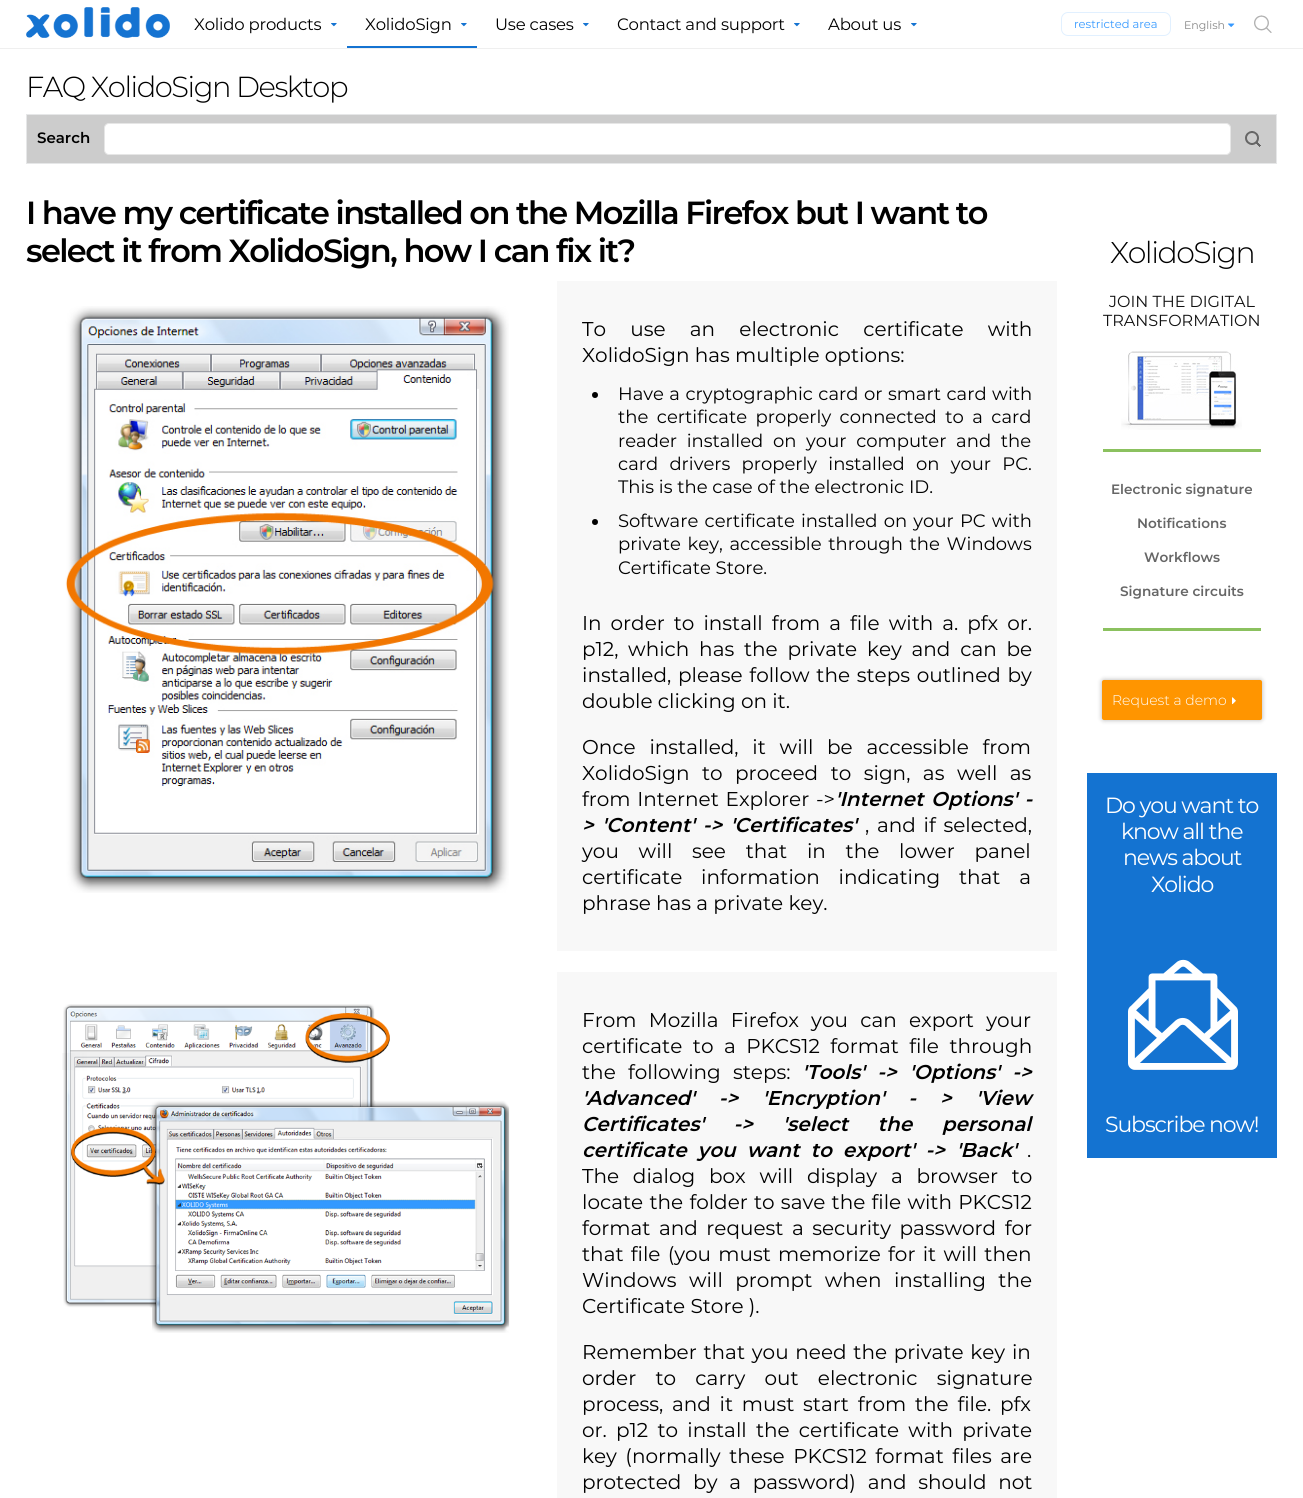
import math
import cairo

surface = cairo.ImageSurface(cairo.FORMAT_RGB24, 1303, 1498)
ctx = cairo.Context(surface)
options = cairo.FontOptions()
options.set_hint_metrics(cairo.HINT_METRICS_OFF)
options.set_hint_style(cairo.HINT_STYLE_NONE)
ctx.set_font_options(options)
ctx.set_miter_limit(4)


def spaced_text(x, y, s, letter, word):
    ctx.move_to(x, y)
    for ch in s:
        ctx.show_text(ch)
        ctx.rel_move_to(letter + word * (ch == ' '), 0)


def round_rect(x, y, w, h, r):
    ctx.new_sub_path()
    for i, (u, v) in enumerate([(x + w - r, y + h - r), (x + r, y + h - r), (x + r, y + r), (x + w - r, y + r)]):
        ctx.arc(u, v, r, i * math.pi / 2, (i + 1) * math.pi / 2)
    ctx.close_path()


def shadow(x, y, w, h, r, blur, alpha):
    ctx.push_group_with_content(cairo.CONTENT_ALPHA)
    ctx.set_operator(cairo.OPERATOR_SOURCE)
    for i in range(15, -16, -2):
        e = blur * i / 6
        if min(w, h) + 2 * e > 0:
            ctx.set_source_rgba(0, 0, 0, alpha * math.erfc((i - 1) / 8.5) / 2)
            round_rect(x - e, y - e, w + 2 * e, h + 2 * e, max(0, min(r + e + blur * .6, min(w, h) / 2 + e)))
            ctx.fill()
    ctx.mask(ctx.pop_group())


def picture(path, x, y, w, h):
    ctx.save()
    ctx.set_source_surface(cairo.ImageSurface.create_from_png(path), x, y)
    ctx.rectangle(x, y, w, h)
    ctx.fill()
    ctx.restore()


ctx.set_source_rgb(1, 1, 1)
ctx.paint()
ctx.set_source_rgb(0.937, 0.937, 0.937)
ctx.rectangle(0, 48, 1303, 1)
ctx.fill()
picture("img1.png", 26, 7, 144, 31)
ctx.select_font_face("Montserrat")
ctx.set_font_size(16.5)
ctx.set_source_rgb(0, 0, 0)
spaced_text(194, 30, "Xolido products", -0.2, 0)
picture("img2.png", 331, 23, 6, 4)
ctx.set_source_rgb(0.082, 0.451, 0.82)
ctx.rectangle(347, 46, 130, 2)
ctx.fill()
ctx.set_source_rgb(0, 0, 0)
spaced_text(365, 30, "XolidoSign", -0.2, 0)
picture("img2.png", 461, 23, 6, 4)
spaced_text(495, 30, "Use cases", -0.2, 0)
picture("img2.png", 583, 23, 6, 4)
spaced_text(617, 30, "Contact and support", -0.2, 0)
picture("img2.png", 794, 23, 6, 4)
spaced_text(828, 30, "About us", -0.2, 0)
picture("img2.png", 911, 23, 6, 4)
round_rect(1061.5, 12.5, 109, 23, 6.5)
ctx.set_source_rgb(0.882, 0.941, 1)
ctx.set_line_width(1)
ctx.stroke()
ctx.set_font_size(11.5)
ctx.set_source_rgb(0.212, 0.6, 1)
ctx.move_to(1074, 28)
ctx.show_text("restricted area")
ctx.set_font_size(11)
ctx.set_source_rgb(0.533, 0.533, 0.533)
ctx.move_to(1184, 29)
ctx.show_text("English")
picture("img3.png", 1228, 23, 7, 4)
picture("img4.png", 1254, 15, 18, 18)
ctx.select_font_face("Montserrat Light")
ctx.set_font_size(29)
ctx.set_source_rgb(0, 0, 0)
spaced_text(26, 97, "FAQ XolidoSign Desktop", -1.45, 0)
ctx.set_source_rgb(0.8, 0.8, 0.8)
ctx.rectangle(26.5, 114.5, 1250, 49)
ctx.fill_preserve()
ctx.set_source_rgb(0.902, 0.906, 0.91)
ctx.stroke()
ctx.select_font_face("Montserrat SemiBold")
ctx.set_font_size(15)
ctx.set_source_rgb(0, 0, 0)
ctx.move_to(37, 143)
ctx.show_text("Search")
ctx.set_source_rgb(1, 1, 1)
round_rect(104.5, 123.5, 1126, 31, 4.5)
ctx.fill_preserve()
ctx.set_source_rgb(0.902, 0.902, 0.902)
ctx.stroke()
picture("img5.png", 1245, 131, 16, 16)
ctx.set_font_size(32)
ctx.set_source_rgb(0, 0, 0)
spaced_text(26, 224, "I have my certificate installed on the Mozilla Firefox but I want to", -1.6, 0)
spaced_text(26, 262, "select it from XolidoSign, how I can fix it?", -1.6, 0)
picture("img6.png", 65, 306, 444, 587)
ctx.set_source_rgb(0.969, 0.969, 0.969)
ctx.rectangle(557, 281, 500, 670)
ctx.fill()
ctx.select_font_face("Montserrat")
ctx.set_font_size(20)
ctx.set_source_rgb(0, 0, 0)
spaced_text(582, 336, "To use an electronic certificate with", 0, 19)
ctx.move_to(582, 362)
ctx.show_text("XolidoSign has multiple options:")
ctx.new_path()
ctx.arc(595, 395, 3, 0, 2 * math.pi)
ctx.fill()
ctx.set_font_size(18)
spaced_text(618, 400, "Have a cryptographic card or smart card with", 0, 0.75)
spaced_text(618, 423, "the certificate properly connected to a card", 0, 3.75)
spaced_text(618, 447, "reader installed on your computer and the", 0, 5)
spaced_text(618, 470, "card drivers properly installed on your PC.", 0, 6.5)
ctx.move_to(618, 493)
ctx.show_text("This is the case of the electronic ID.")
ctx.new_path()
ctx.arc(595, 522, 3, 0, 2 * math.pi)
ctx.fill()
spaced_text(618, 527, "Software certificate installed on your PC with", 0, 1.5)
spaced_text(618, 550, "private key, accessible through the Windows", 0, 2)
ctx.move_to(618, 574)
ctx.show_text("Certificate Store.")
ctx.set_font_size(20)
spaced_text(582, 630, "In order to install from a file with a. pfx or.", 0, 3.75)
spaced_text(582, 656, "p12, which has the private key and can be", 0, 4.5)
spaced_text(582, 682, "installed, please follow the steps outlined by", 0, 1.5)
ctx.move_to(582, 708)
ctx.show_text("double clicking on it.")
spaced_text(582, 754, "Once installed, it will be accessible from", 0, 8.5)
spaced_text(582, 780, "XolidoSign to proceed to sign, as well as", 0, 7.25)
spaced_text(582, 806, "from Internet Explorer ->", 0, 1.5)
ctx.select_font_face("Montserrat SemiBold", cairo.FONT_SLANT_ITALIC)
spaced_text(835, 806, "'Internet Options' -", 0, 2)
spaced_text(582, 832, "> 'Content' -> 'Certificates'", 0, 2.5)
ctx.select_font_face("Montserrat")
spaced_text(865, 832, ", and if selected,", 0, 2.5)
spaced_text(582, 858, "you will see that in the lower panel", 0, 14.5)
spaced_text(582, 884, "certificate information indicating that a", 0, 13.5)
ctx.move_to(582, 910)
ctx.show_text("phrase has a private key.")
picture("img7.png", 62, 1004, 448, 329)
ctx.set_source_rgb(0.969, 0.969, 0.969)
ctx.rectangle(557, 972, 500, 526)
ctx.fill()
ctx.set_source_rgb(0, 0, 0)
spaced_text(582, 1027, "From Mozilla Firefox you can export your", 0, 7)
spaced_text(582, 1053, "certificate to a PKCS12 format file through", 0, 5.25)
spaced_text(582, 1079, "the following steps:", 0, 7)
ctx.select_font_face("Montserrat SemiBold", cairo.FONT_SLANT_ITALIC)
spaced_text(802, 1079, "'Tools' -> 'Options' ->", 0, 7)
spaced_text(582, 1105, "'Advanced' -> 'Encryption' - > 'View", 0, 18.5)
spaced_text(582, 1131, "Certificates' -> 'select the personal", 0, 24)
spaced_text(582, 1157, "certificate you want to export' -> 'Back'", 0, 5.5)
ctx.select_font_face("Montserrat")
ctx.move_to(1027, 1157)
ctx.show_text(".")
spaced_text(582, 1183, "The dialog box will display a browser to", 0, 8.5)
spaced_text(582, 1209, "locate the folder to save the file with PKCS12", 0, 1)
spaced_text(582, 1235, "format and request a security password for", 0, 3.25)
spaced_text(582, 1261, "that file (you must memorize for it will then", 0, 2)
spaced_text(582, 1287, "Windows will prompt when installing the", 0, 7.25)
ctx.move_to(582, 1313)
ctx.show_text("Certificate Store ).")
spaced_text(582, 1359, "Remember that you need the private key in", 0, 1.5)
spaced_text(582, 1385, "order to carry out electronic signature", 0, 14)
spaced_text(582, 1411, "process, and it must start from the file. pfx", 0, 3.5)
spaced_text(582, 1437, "or. p12 to install the certificate with private", 0, 4)
spaced_text(582, 1463, "key (normally these PKCS12 format files are", 0, 3.25)
spaced_text(582, 1489, "protected by a password) and should not", 0, 6.5)
ctx.select_font_face("Montserrat Light")
ctx.set_font_size(30)
spaced_text(1110, 263, "XolidoSign", -1.5, 0)
ctx.select_font_face("Montserrat")
ctx.set_font_size(16)
ctx.set_source_rgb(0.067, 0.067, 0.067)
ctx.move_to(1109, 307)
ctx.show_text("JOIN THE DIGITAL")
ctx.move_to(1103, 326)
ctx.show_text("TRANSFORMATION")
picture("img8.png", 1121, 351, 121, 79)
ctx.set_source_rgb(0.545, 0.757, 0.373)
ctx.rectangle(1103, 449, 158, 3)
ctx.fill()
ctx.rectangle(1103, 628, 158, 3)
ctx.fill()
ctx.select_font_face("Montserrat SemiBold")
ctx.set_font_size(13.6)
ctx.set_source_rgb(0.4, 0.4, 0.4)
ctx.move_to(1111, 494)
ctx.show_text("Electronic signature")
ctx.move_to(1137, 528)
ctx.show_text("Notifications")
ctx.move_to(1144, 562)
ctx.show_text("Workflows")
ctx.move_to(1120, 596)
ctx.show_text("Signature circuits")
ctx.set_source_rgb(0, 0, 0)
shadow(1102, 680, 160, 40, 2, 2.5, 0.3)
ctx.set_source_rgb(1, 0.584, 0)
round_rect(1102, 680, 160, 40, 2)
ctx.fill()
ctx.select_font_face("Montserrat Light")
ctx.set_font_size(14)
ctx.set_source_rgb(1, 1, 1)
ctx.move_to(1112, 705)
ctx.show_text("Request a demo")
picture("img9.png", 1232, 697, 4, 8)
ctx.set_source_rgb(0.082, 0.451, 0.82)
ctx.rectangle(1087, 773, 190, 385)
ctx.fill()
ctx.select_font_face("Montserrat")
ctx.set_font_size(22)
ctx.set_source_rgb(1, 1, 1)
spaced_text(1105, 813, "Do you want to", -1.1, 0)
spaced_text(1121, 839, "know all the", -1.1, 0)
spaced_text(1123, 865, "news about", -1.1, 0)
spaced_text(1151, 892, "Xolido", -1.1, 0)
picture("img10.png", 1128, 959, 110, 111)
spaced_text(1105, 1132, "Subscribe now!", -1.1, 0)
surface.write_to_png("page.png")
